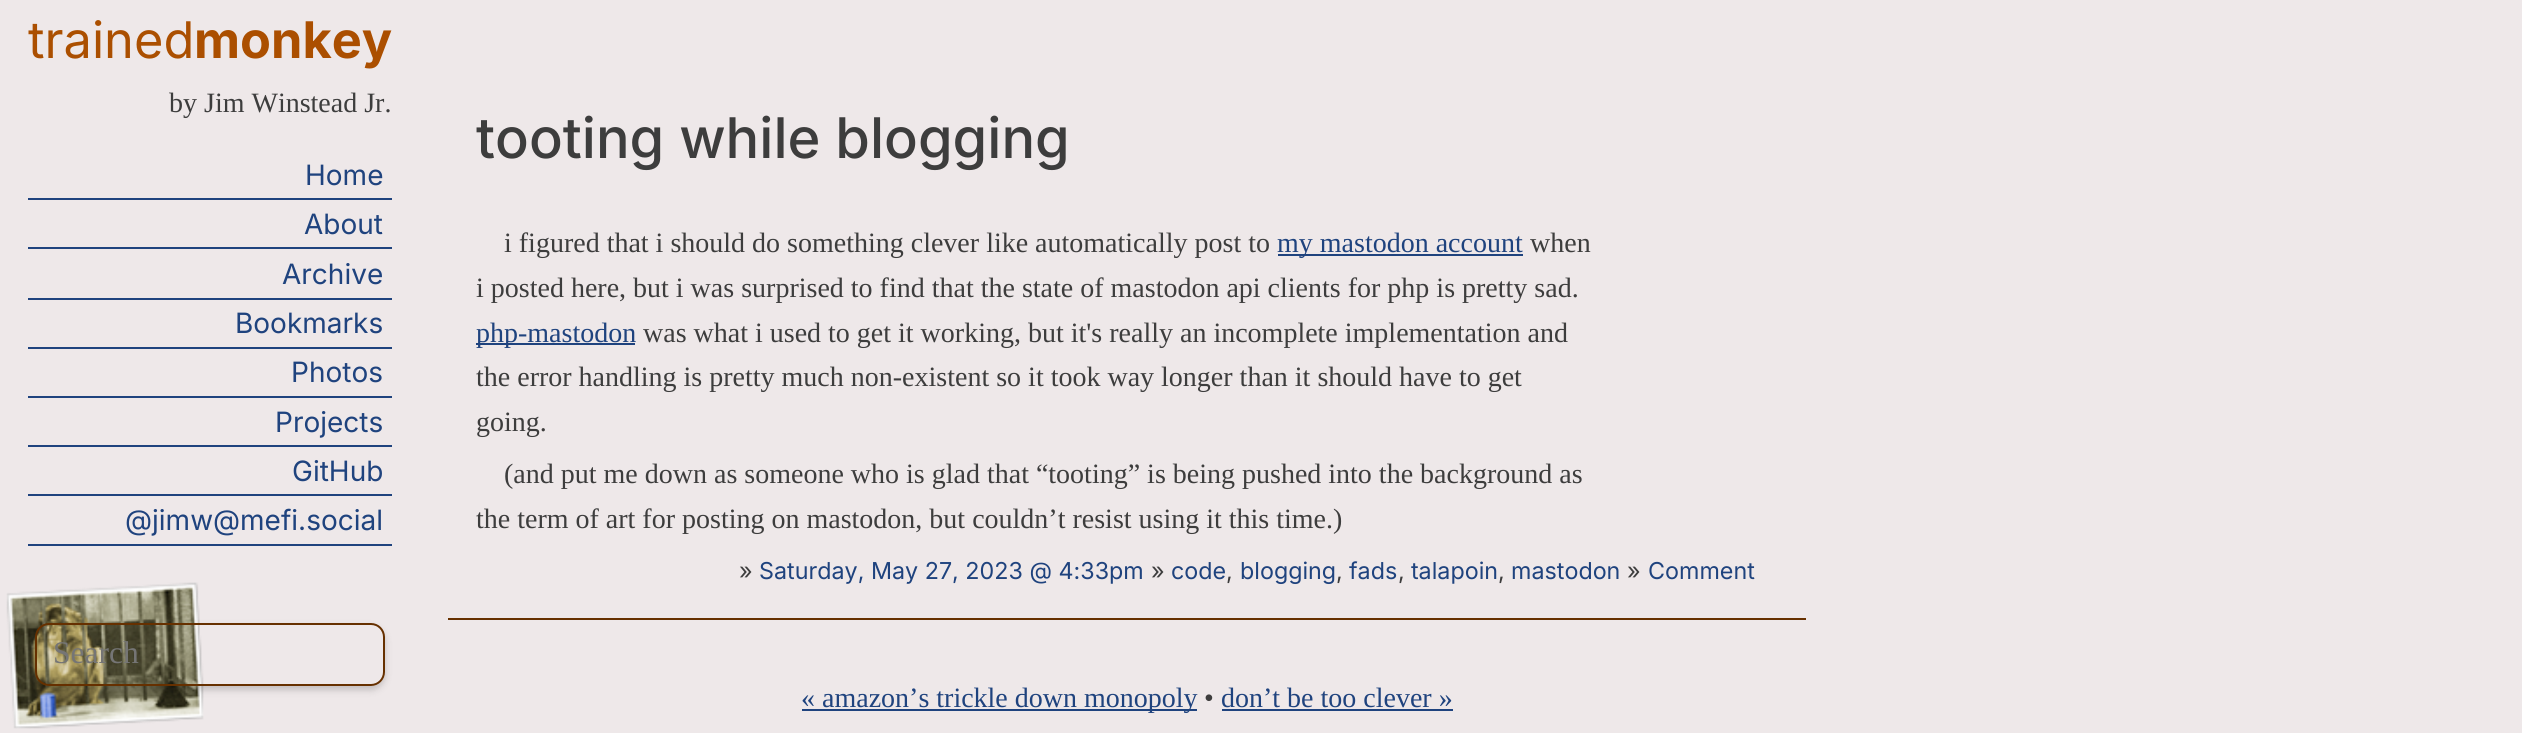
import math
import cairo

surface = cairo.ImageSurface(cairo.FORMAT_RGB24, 2522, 733)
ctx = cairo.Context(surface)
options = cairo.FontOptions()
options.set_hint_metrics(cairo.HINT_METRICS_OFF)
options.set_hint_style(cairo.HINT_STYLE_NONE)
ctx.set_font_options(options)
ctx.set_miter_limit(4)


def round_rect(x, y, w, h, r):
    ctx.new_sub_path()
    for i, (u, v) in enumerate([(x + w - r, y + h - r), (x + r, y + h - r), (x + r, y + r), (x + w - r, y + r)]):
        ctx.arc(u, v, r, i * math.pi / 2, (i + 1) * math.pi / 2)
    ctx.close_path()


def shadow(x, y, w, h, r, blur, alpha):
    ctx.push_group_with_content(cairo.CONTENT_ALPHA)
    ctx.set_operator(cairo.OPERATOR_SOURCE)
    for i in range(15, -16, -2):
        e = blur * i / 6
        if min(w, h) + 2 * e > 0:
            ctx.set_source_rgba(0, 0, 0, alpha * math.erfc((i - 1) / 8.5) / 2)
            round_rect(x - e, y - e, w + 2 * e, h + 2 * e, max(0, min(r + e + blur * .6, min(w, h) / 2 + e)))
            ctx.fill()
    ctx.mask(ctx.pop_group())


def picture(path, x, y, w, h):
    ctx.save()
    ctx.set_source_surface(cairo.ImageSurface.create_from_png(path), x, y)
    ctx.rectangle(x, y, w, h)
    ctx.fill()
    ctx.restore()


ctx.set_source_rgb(0.933, 0.91, 0.914)
ctx.paint()
picture("img1.png", 6, 582, 198, 147)
ctx.select_font_face("Inter")
ctx.set_font_size(50.5)
ctx.set_source_rgb(0.671, 0.31, 0)
ctx.move_to(28, 58)
ctx.show_text("trained")
ctx.select_font_face("Inter", cairo.FONT_SLANT_NORMAL, cairo.FONT_WEIGHT_BOLD)
ctx.move_to(194, 58)
ctx.show_text("monkey")
ctx.select_font_face("Liberation Serif")
ctx.set_font_size(28)
ctx.set_source_rgb(0.239, 0.239, 0.239)
ctx.move_to(169, 112)
ctx.show_text("by Jim Winstead Jr.")
ctx.set_source_rgb(0.122, 0.263, 0.494)
ctx.rectangle(28, 198, 364, 2)
ctx.fill()
ctx.select_font_face("Inter")
ctx.move_to(305, 185)
ctx.show_text("Home")
ctx.rectangle(28, 247, 364, 2)
ctx.fill()
ctx.move_to(304, 234)
ctx.show_text("About")
ctx.rectangle(28, 298, 364, 2)
ctx.fill()
ctx.move_to(282, 284)
ctx.show_text("Archive")
ctx.rectangle(28, 347, 364, 2)
ctx.fill()
ctx.move_to(235, 333)
ctx.show_text("Bookmarks")
ctx.rectangle(28, 396, 364, 2)
ctx.fill()
ctx.move_to(291, 382)
ctx.show_text("Photos")
ctx.rectangle(28, 445, 364, 2)
ctx.fill()
ctx.move_to(275, 432)
ctx.show_text("Projects")
ctx.rectangle(28, 494, 364, 2)
ctx.fill()
ctx.move_to(292, 481)
ctx.show_text("GitHub")
ctx.rectangle(28, 544, 364, 2)
ctx.fill()
ctx.move_to(125, 530)
ctx.show_text("@jimw@mefi.social")
ctx.save()
ctx.set_fill_rule(cairo.FILL_RULE_EVEN_ODD)
ctx.new_path()
ctx.move_to(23, 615)
ctx.line_to(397, 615)
ctx.line_to(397, 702)
ctx.line_to(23, 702)
ctx.close_path()
ctx.move_to(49, 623)
ctx.line_to(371, 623)
ctx.curve_to(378.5, 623, 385, 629.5, 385, 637)
ctx.line_to(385, 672)
ctx.curve_to(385, 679.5, 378.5, 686, 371, 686)
ctx.line_to(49, 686)
ctx.curve_to(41.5, 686, 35, 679.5, 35, 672)
ctx.line_to(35, 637)
ctx.curve_to(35, 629.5, 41.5, 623, 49, 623)
ctx.close_path()
ctx.clip()
ctx.set_source_rgb(0, 0, 0)
shadow(35, 627, 350, 63, 14, 3.5, 0.18)
ctx.restore()
round_rect(36, 624, 348, 61, 13)
ctx.set_source_rgb(0.4, 0.188, 0)
ctx.stroke()
ctx.select_font_face("Liberation Serif")
ctx.set_font_size(31.5)
ctx.set_source_rgb(0.459, 0.459, 0.459)
ctx.move_to(53, 663)
ctx.show_text("Search")
ctx.set_source_rgb(0.4, 0.188, 0)
ctx.rectangle(448, 618, 1358, 2)
ctx.fill()
ctx.select_font_face("Inter Medium")
ctx.set_font_size(56)
ctx.set_source_rgb(0.239, 0.239, 0.239)
ctx.move_to(476, 158)
ctx.show_text("tooting while blogging")
ctx.select_font_face("Liberation Serif")
ctx.set_font_size(28)
ctx.move_to(504, 252)
ctx.show_text("i figured that i should do something clever like automatically post to")
ctx.set_source_rgb(0.122, 0.263, 0.494)
ctx.rectangle(1278, 254, 245, 2)
ctx.fill()
ctx.move_to(1277, 252)
ctx.show_text("my mastodon account")
ctx.set_source_rgb(0.239, 0.239, 0.239)
ctx.move_to(1530, 252)
ctx.show_text("when")
ctx.move_to(476, 297)
ctx.show_text("i posted here, but i was surprised to find that the state of mastodon api clients for php is pretty sad.")
ctx.set_source_rgb(0.122, 0.263, 0.494)
ctx.rectangle(476, 343, 159, 2)
ctx.fill()
ctx.move_to(476, 342)
ctx.show_text("php-mastodon")
ctx.set_source_rgb(0.239, 0.239, 0.239)
ctx.move_to(643, 342)
ctx.show_text("was what i used to get it working, but it's really an incomplete implementation and")
ctx.move_to(476, 386)
ctx.show_text("the error handling is pretty much non-existent so it took way longer than it should have to get")
ctx.move_to(476, 431)
ctx.show_text("going.")
ctx.move_to(504, 483)
ctx.show_text("(and put me down as someone who is glad that “tooting” is being pushed into the background as")
ctx.move_to(476, 528)
ctx.show_text("the term of art for posting on mastodon, but couldn’t resist using it this time.)")
ctx.select_font_face("Inter")
ctx.set_font_size(23.3)
ctx.move_to(739, 579)
ctx.show_text("»")
ctx.set_source_rgb(0.122, 0.263, 0.494)
ctx.move_to(759, 579)
ctx.show_text("Saturday, May 27, 2023 @ 4:33pm")
ctx.set_source_rgb(0.239, 0.239, 0.239)
ctx.move_to(1151, 579)
ctx.show_text("»")
ctx.set_source_rgb(0.122, 0.263, 0.494)
ctx.move_to(1171, 579)
ctx.show_text("code")
ctx.move_to(1240, 579)
ctx.show_text("blogging")
ctx.move_to(1349, 579)
ctx.show_text("fads")
ctx.move_to(1411, 579)
ctx.show_text("talapoin")
ctx.move_to(1511, 579)
ctx.show_text("mastodon")
ctx.set_source_rgb(0.239, 0.239, 0.239)
ctx.move_to(1627, 579)
ctx.show_text("»")
ctx.set_source_rgb(0.122, 0.263, 0.494)
ctx.move_to(1648, 579)
ctx.show_text("Comment")
ctx.set_source_rgb(0.239, 0.239, 0.239)
ctx.move_to(1226, 579)
ctx.show_text(",")
ctx.move_to(1336, 579)
ctx.show_text(",")
ctx.move_to(1398, 579)
ctx.show_text(",")
ctx.move_to(1498, 579)
ctx.show_text(",")
ctx.set_source_rgb(0.122, 0.263, 0.494)
ctx.rectangle(802, 709, 395, 2)
ctx.fill()
ctx.select_font_face("Liberation Serif")
ctx.set_font_size(28)
ctx.move_to(801, 707)
ctx.show_text("« amazon’s trickle down monopoly")
ctx.set_source_rgb(0.239, 0.239, 0.239)
ctx.move_to(1204, 707)
ctx.show_text("•")
ctx.set_source_rgb(0.122, 0.263, 0.494)
ctx.move_to(1221, 707)
ctx.show_text("don’t be too clever »")
ctx.rectangle(1222, 709, 231, 2)
ctx.fill()
surface.write_to_png("page.png")
